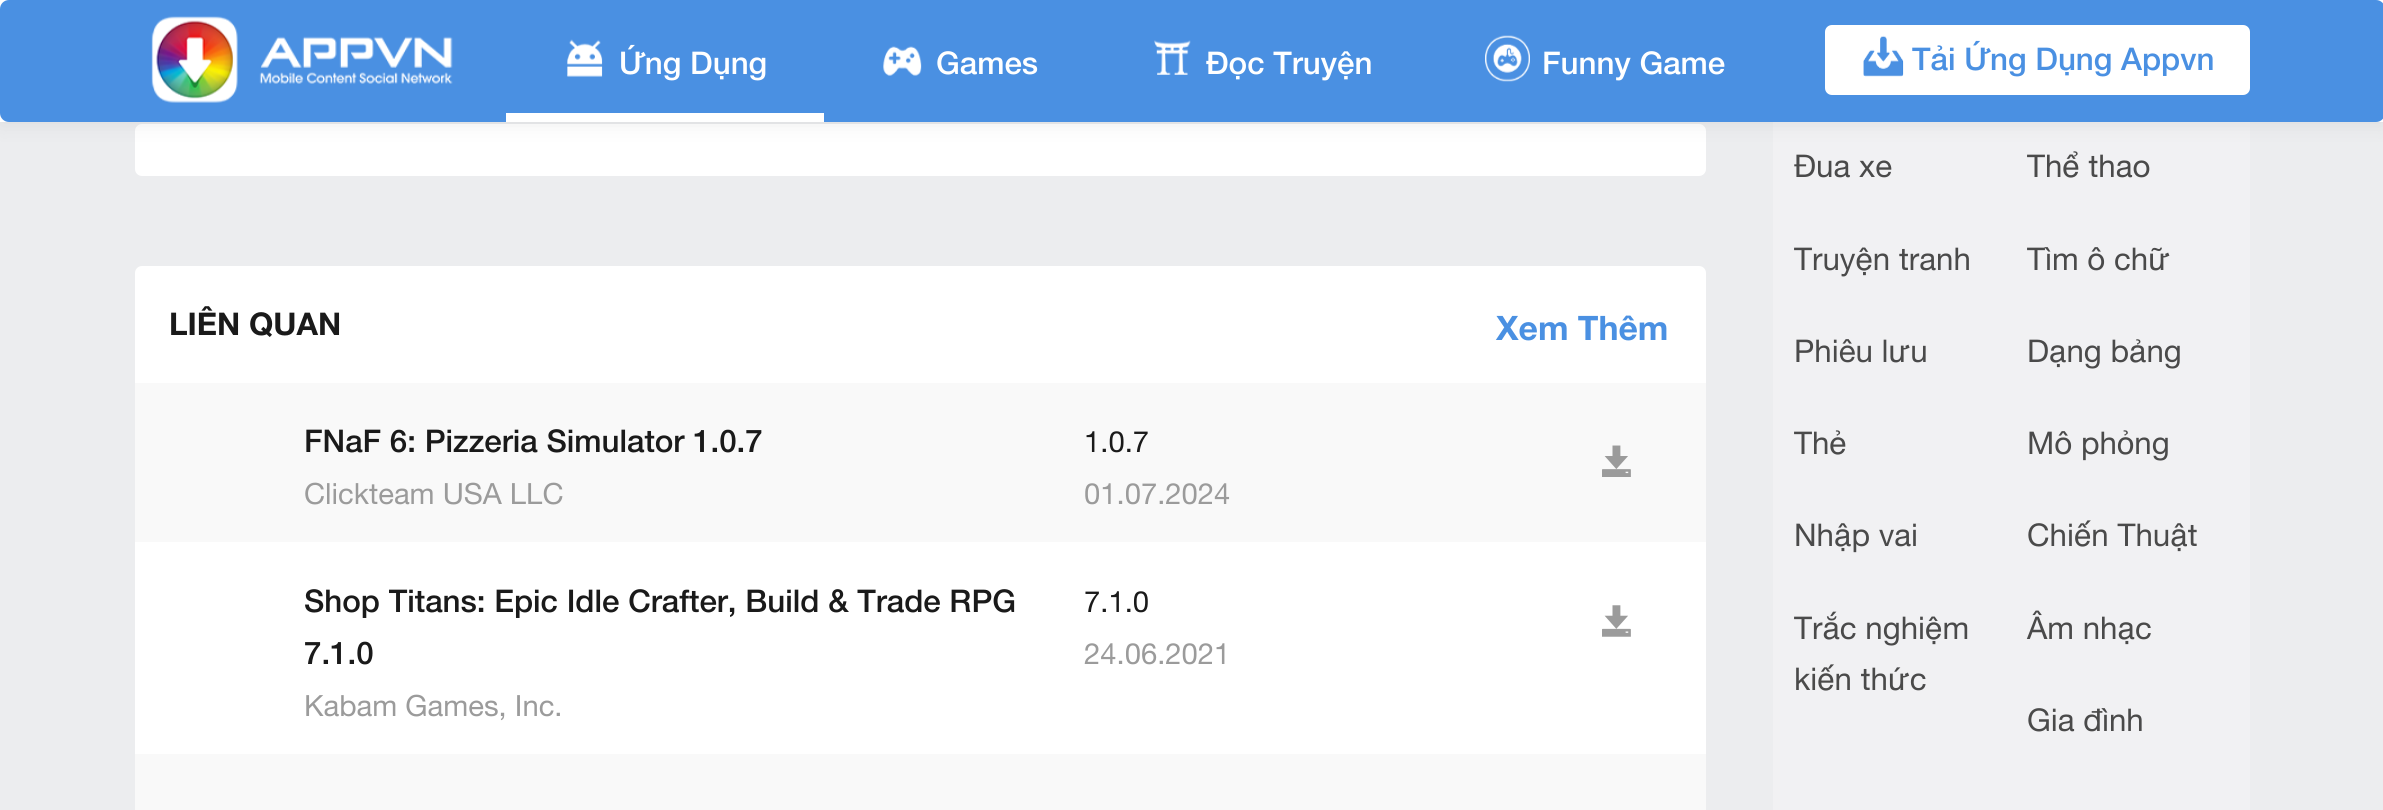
import math
import cairo

surface = cairo.ImageSurface(cairo.FORMAT_RGB24, 2383, 810)
ctx = cairo.Context(surface)
options = cairo.FontOptions()
options.set_hint_metrics(cairo.HINT_METRICS_OFF)
options.set_hint_style(cairo.HINT_STYLE_NONE)
ctx.set_font_options(options)
ctx.set_miter_limit(4)


def round_rect(x, y, w, h, r):
    ctx.new_sub_path()
    for i, (u, v) in enumerate([(x + w - r, y + h - r), (x + r, y + h - r), (x + r, y + r), (x + w - r, y + r)]):
        ctx.arc(u, v, r, i * math.pi / 2, (i + 1) * math.pi / 2)
    ctx.close_path()


def shadow(x, y, w, h, r, blur, alpha):
    ctx.push_group_with_content(cairo.CONTENT_ALPHA)
    ctx.set_operator(cairo.OPERATOR_SOURCE)
    for i in range(15, -16, -2):
        e = blur * i / 6
        if min(w, h) + 2 * e > 0:
            ctx.set_source_rgba(0, 0, 0, alpha * math.erfc((i - 1) / 8.5) / 2)
            round_rect(x - e, y - e, w + 2 * e, h + 2 * e, max(0, min(r + e + blur * .6, min(w, h) / 2 + e)))
            ctx.fill()
    ctx.mask(ctx.pop_group())


def picture(path, x, y, w, h):
    ctx.save()
    ctx.set_source_surface(cairo.ImageSurface.create_from_png(path), x, y)
    ctx.rectangle(x, y, w, h)
    ctx.fill()
    ctx.restore()


ctx.set_source_rgb(0.925, 0.929, 0.937)
ctx.paint()
ctx.set_source_rgb(1, 1, 1)
round_rect(135, 124, 1571, 52, 7)
ctx.fill()
ctx.set_source_rgb(0.945, 0.945, 0.953)
ctx.rectangle(1773, 122, 477, 688)
ctx.fill()
ctx.set_source_rgb(0, 0, 0)
shadow(0, 0, 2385, 122, 0, 11, 0.09)
ctx.set_source_rgb(1, 1, 1)
ctx.rectangle(0, 0, 2383, 122)
ctx.fill()
ctx.set_source_rgb(0.29, 0.565, 0.886)
round_rect(1, 1, 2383, 120, 8)
ctx.fill_preserve()
ctx.stroke()
picture("img1.png", 151, 16, 302, 87)
picture("img2.png", 567, 39, 36, 38)
ctx.select_font_face("Helvetica Neue Medium")
ctx.set_font_size(31.3)
ctx.set_source_rgb(1, 1, 1)
ctx.move_to(619, 74)
ctx.show_text("Ứng Dụng")
ctx.rectangle(506, 113, 318, 9)
ctx.fill()
picture("img3.png", 883, 46, 39, 30)
ctx.move_to(936, 74)
ctx.show_text("Games")
picture("img4.png", 1154, 40, 37, 35)
ctx.move_to(1206, 74)
ctx.show_text("Đọc Truyện")
picture("img5.png", 1485, 35, 45, 47)
ctx.move_to(1542, 74)
ctx.show_text("Funny Game")
round_rect(1826, 26, 423, 68, 6)
ctx.fill_preserve()
ctx.stroke()
picture("img6.png", 1863, 35, 41, 42)
ctx.set_source_rgb(0.29, 0.565, 0.886)
ctx.move_to(1912, 70)
ctx.show_text("Tải Ứng Dụng Appvn")
ctx.set_source_rgb(1, 1, 1)
round_rect(135, 266, 1571, 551, 7)
ctx.fill()
ctx.select_font_face("Helvetica Neue", cairo.FONT_SLANT_NORMAL, cairo.FONT_WEIGHT_BOLD)
ctx.set_source_rgb(0.102, 0.102, 0.102)
ctx.move_to(169, 335)
ctx.show_text("LIÊN QUAN")
ctx.set_font_size(33.75)
ctx.set_source_rgb(0.29, 0.565, 0.886)
ctx.move_to(1496, 340)
ctx.show_text("Xem Thêm")
ctx.set_source_rgb(0.973, 0.973, 0.973)
ctx.rectangle(135, 383, 1571, 159)
ctx.fill()
ctx.select_font_face("Helvetica Neue Medium")
ctx.set_font_size(31.3)
ctx.set_source_rgb(0.102, 0.102, 0.102)
ctx.move_to(304, 452)
ctx.show_text("FNaF 6: Pizzeria Simulator 1.0.7")
ctx.select_font_face("Helvetica Neue")
ctx.set_font_size(29.25)
ctx.set_source_rgb(0.608, 0.608, 0.608)
ctx.move_to(304, 504)
ctx.show_text("Clickteam USA LLC")
ctx.set_source_rgb(0.102, 0.102, 0.102)
ctx.move_to(1084, 452)
ctx.show_text("1.0.7")
ctx.set_source_rgb(0.608, 0.608, 0.608)
ctx.move_to(1084, 504)
ctx.show_text("01.07.2024")
picture("img7.png", 1602, 445, 29, 32)
ctx.select_font_face("Helvetica Neue Medium")
ctx.set_font_size(31.3)
ctx.set_source_rgb(0.102, 0.102, 0.102)
ctx.move_to(304, 612)
ctx.show_text("Shop Titans: Epic Idle Crafter, Build & Trade RPG")
ctx.move_to(304, 664)
ctx.show_text("7.1.0")
ctx.select_font_face("Helvetica Neue")
ctx.set_font_size(29.25)
ctx.set_source_rgb(0.608, 0.608, 0.608)
ctx.move_to(304, 716)
ctx.show_text("Kabam Games, Inc.")
ctx.set_source_rgb(0.102, 0.102, 0.102)
ctx.move_to(1084, 612)
ctx.show_text("7.1.0")
ctx.set_source_rgb(0.608, 0.608, 0.608)
ctx.move_to(1084, 664)
ctx.show_text("24.06.2021")
picture("img8.png", 1602, 605, 29, 32)
ctx.set_source_rgb(0.973, 0.973, 0.973)
ctx.rectangle(135, 754, 1571, 56)
ctx.fill()
ctx.set_font_size(31.3)
ctx.set_source_rgb(0.29, 0.29, 0.29)
ctx.move_to(1794, 177)
ctx.show_text("Đua xe")
ctx.move_to(2027, 177)
ctx.show_text("Thể thao")
ctx.move_to(1794, 270)
ctx.show_text("Truyện tranh")
ctx.move_to(2027, 270)
ctx.show_text("Tìm ô chữ")
ctx.move_to(1794, 362)
ctx.show_text("Phiêu lưu")
ctx.move_to(2027, 362)
ctx.show_text("Dạng bảng")
ctx.move_to(1794, 454)
ctx.show_text("Thẻ")
ctx.move_to(2027, 454)
ctx.show_text("Mô phỏng")
ctx.move_to(1794, 546)
ctx.show_text("Nhập vai")
ctx.move_to(2027, 546)
ctx.show_text("Chiến Thuật")
ctx.move_to(1794, 639)
ctx.show_text("Trắc nghiệm")
ctx.move_to(1794, 690)
ctx.show_text("kiến thức")
ctx.move_to(2027, 639)
ctx.show_text("Âm nhạc")
ctx.move_to(2027, 731)
ctx.show_text("Gia đình")
surface.write_to_png("page.png")
